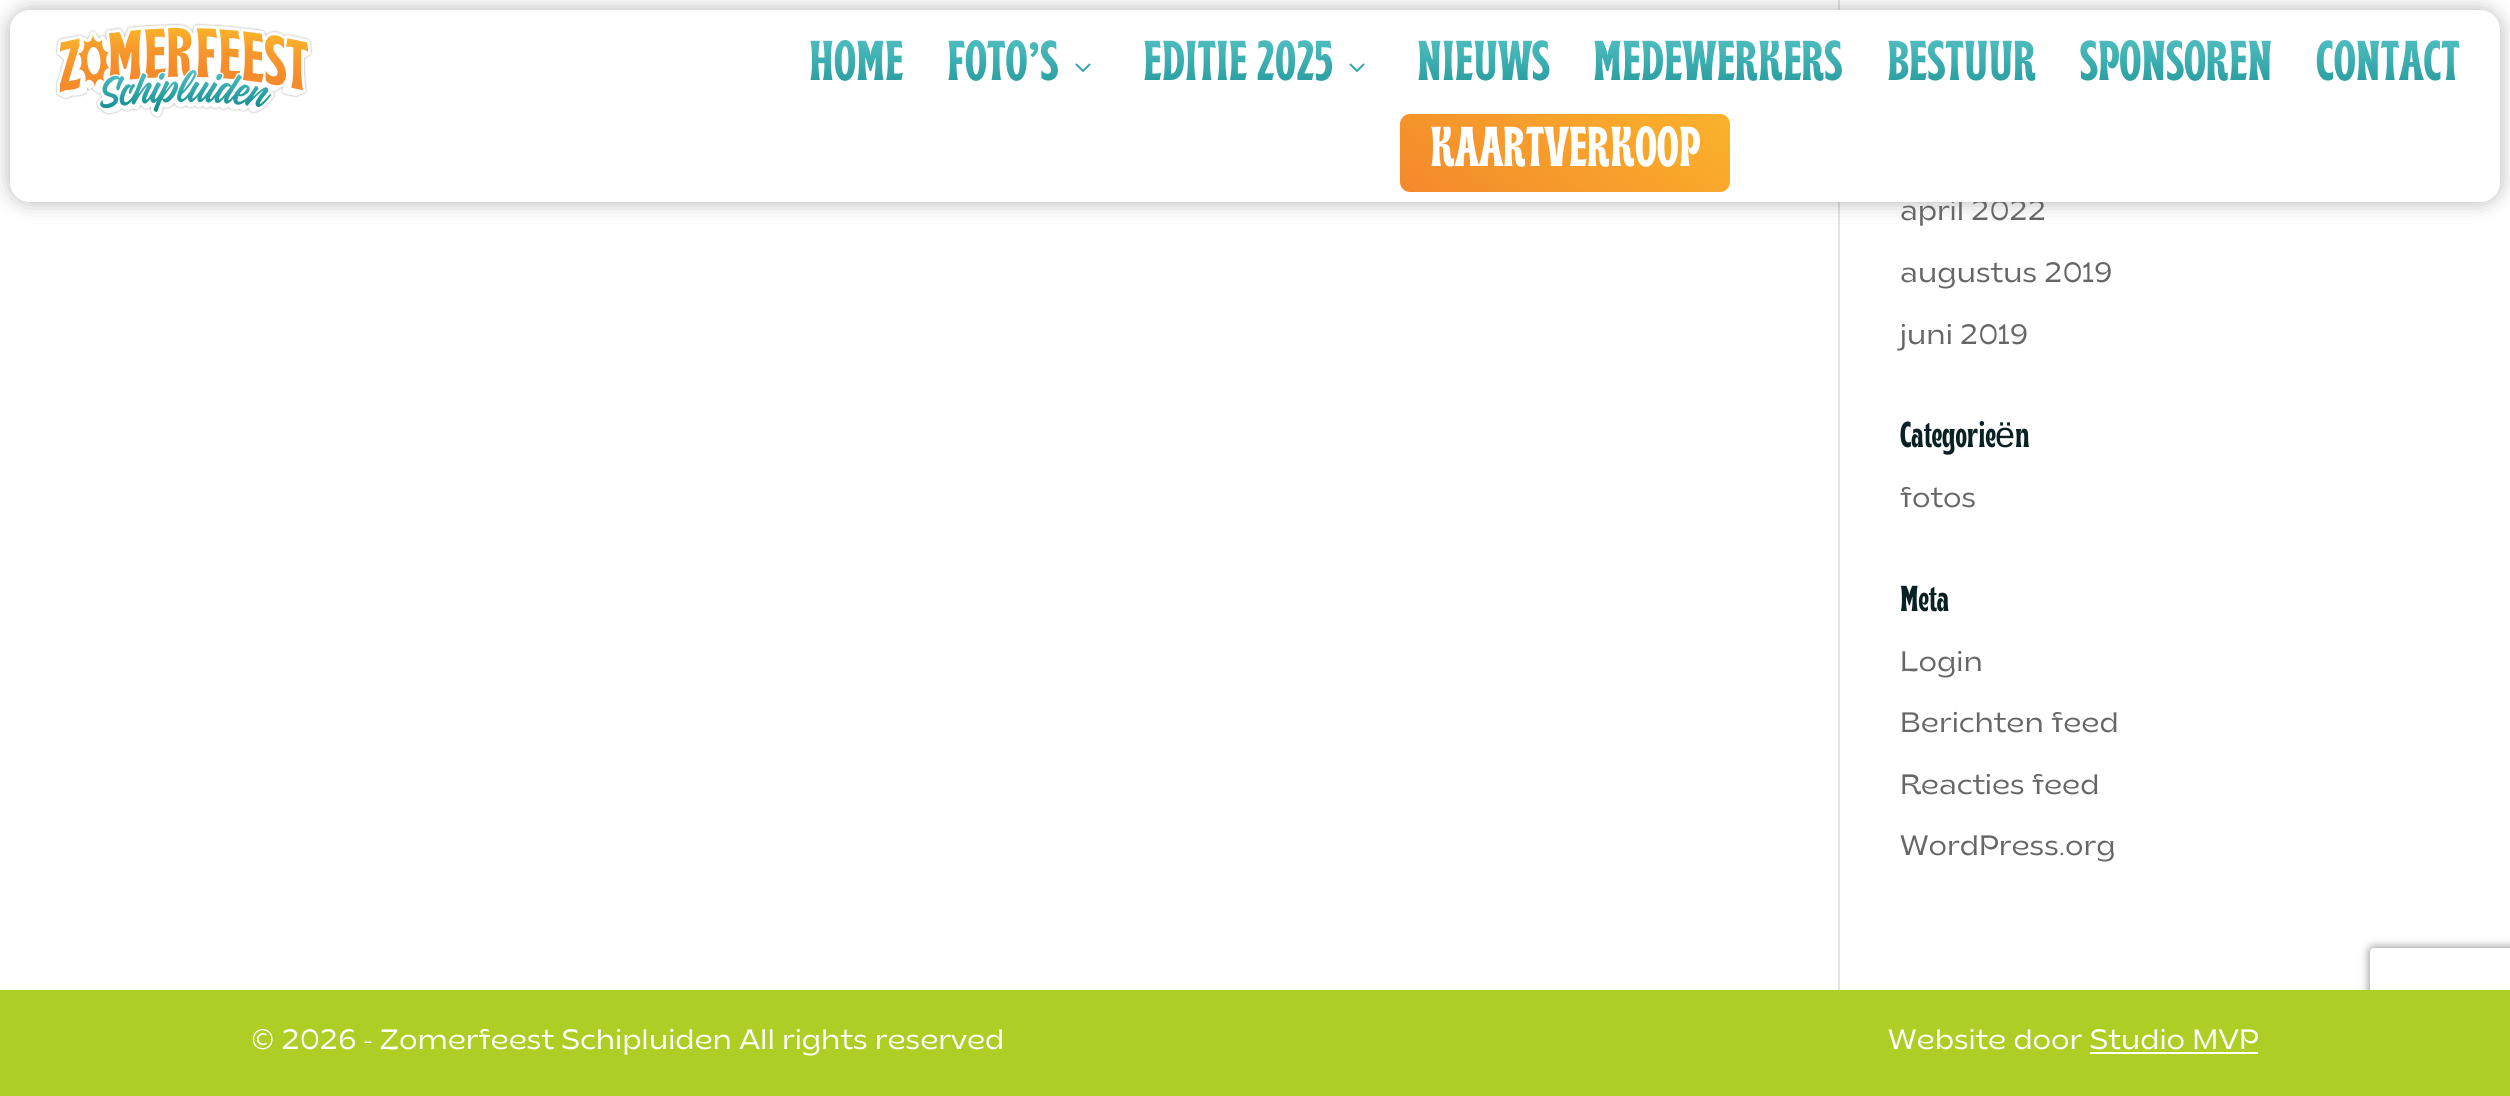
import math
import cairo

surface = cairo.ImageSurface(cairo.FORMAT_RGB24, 2510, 1096)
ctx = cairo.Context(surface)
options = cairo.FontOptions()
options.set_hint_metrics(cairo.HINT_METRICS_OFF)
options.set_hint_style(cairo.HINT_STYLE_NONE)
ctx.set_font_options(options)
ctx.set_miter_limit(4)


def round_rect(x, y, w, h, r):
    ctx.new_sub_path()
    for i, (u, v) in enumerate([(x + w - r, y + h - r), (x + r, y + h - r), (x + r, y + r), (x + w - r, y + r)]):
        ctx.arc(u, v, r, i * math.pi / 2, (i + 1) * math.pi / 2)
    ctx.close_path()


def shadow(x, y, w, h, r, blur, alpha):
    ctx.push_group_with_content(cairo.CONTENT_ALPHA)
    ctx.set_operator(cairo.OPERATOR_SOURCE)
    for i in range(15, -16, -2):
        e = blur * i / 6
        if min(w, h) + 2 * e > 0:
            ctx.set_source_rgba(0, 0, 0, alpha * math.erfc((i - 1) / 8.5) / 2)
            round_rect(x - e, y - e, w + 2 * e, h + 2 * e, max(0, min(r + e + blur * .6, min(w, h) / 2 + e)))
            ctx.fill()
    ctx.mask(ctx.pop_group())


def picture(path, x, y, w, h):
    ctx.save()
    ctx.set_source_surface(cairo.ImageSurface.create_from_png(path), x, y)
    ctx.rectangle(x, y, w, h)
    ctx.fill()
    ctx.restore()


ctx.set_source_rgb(1, 1, 1)
ctx.paint()
ctx.set_source_rgb(0.886, 0.886, 0.886)
ctx.rectangle(1838, 0, 2, 990)
ctx.fill()
ctx.set_source_rgb(0, 0, 0)
shadow(10, 10, 2490, 192, 20, 10, 0.3)
ctx.select_font_face("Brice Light")
ctx.set_font_size(28)
ctx.set_source_rgb(0.4, 0.4, 0.4)
ctx.move_to(1900, 220)
ctx.show_text("april 2022")
ctx.set_source_rgb(1, 1, 1)
round_rect(10, 10, 2490, 192, 20)
ctx.fill()
picture("img1.png", 55, 23, 258, 95)
ctx.select_font_face("Brice Black")
ctx.set_font_size(56)
gradient = cairo.LinearGradient(856, 36, 856, 114)
gradient.add_color_stop_rgba(0, 0.318, 0.749, 0.761, 1)
gradient.add_color_stop_rgba(1, 0.063, 0.533, 0.541, 1)
ctx.set_source(gradient)
ctx.move_to(809, 80)
ctx.show_text("HOME")
gradient = cairo.LinearGradient(1023, 36, 1023, 114)
gradient.add_color_stop_rgba(0, 0.318, 0.749, 0.761, 1)
gradient.add_color_stop_rgba(1, 0.063, 0.533, 0.541, 1)
ctx.set_source(gradient)
ctx.move_to(947, 80)
ctx.show_text("FOTO’S")
picture("img2.png", 1075, 63, 16, 9)
gradient = cairo.LinearGradient(1258, 36, 1258, 114)
gradient.add_color_stop_rgba(0, 0.318, 0.749, 0.761, 1)
gradient.add_color_stop_rgba(1, 0.063, 0.533, 0.541, 1)
ctx.set_source(gradient)
ctx.move_to(1143, 80)
ctx.show_text("EDITIE 2025")
picture("img2.png", 1349, 63, 16, 9)
gradient = cairo.LinearGradient(1483, 36, 1483, 114)
gradient.add_color_stop_rgba(0, 0.318, 0.749, 0.761, 1)
gradient.add_color_stop_rgba(1, 0.063, 0.533, 0.541, 1)
ctx.set_source(gradient)
ctx.move_to(1417, 80)
ctx.show_text("NIEUWS")
gradient = cairo.LinearGradient(1718, 36, 1718, 114)
gradient.add_color_stop_rgba(0, 0.318, 0.749, 0.761, 1)
gradient.add_color_stop_rgba(1, 0.063, 0.533, 0.541, 1)
ctx.set_source(gradient)
ctx.move_to(1593, 80)
ctx.show_text("MEDEWERKERS")
gradient = cairo.LinearGradient(1961, 36, 1961, 114)
gradient.add_color_stop_rgba(0, 0.318, 0.749, 0.761, 1)
gradient.add_color_stop_rgba(1, 0.063, 0.533, 0.541, 1)
ctx.set_source(gradient)
ctx.move_to(1887, 80)
ctx.show_text("BESTUUR")
gradient = cairo.LinearGradient(2176, 36, 2176, 114)
gradient.add_color_stop_rgba(0, 0.318, 0.749, 0.761, 1)
gradient.add_color_stop_rgba(1, 0.063, 0.533, 0.541, 1)
ctx.set_source(gradient)
ctx.move_to(2080, 80)
ctx.show_text("SPONSOREN")
gradient = cairo.LinearGradient(2388, 36, 2388, 114)
gradient.add_color_stop_rgba(0, 0.318, 0.749, 0.761, 1)
gradient.add_color_stop_rgba(1, 0.063, 0.533, 0.541, 1)
ctx.set_source(gradient)
ctx.move_to(2316, 80)
ctx.show_text("CONTACT")
gradient = cairo.LinearGradient(1489, 257, 1641, 49)
gradient.add_color_stop_rgba(0, 0.957, 0.537, 0.173, 1)
gradient.add_color_stop_rgba(0.99, 0.98, 0.698, 0.169, 1)
ctx.set_source(gradient)
round_rect(1400, 114, 330, 78, 10)
ctx.fill()
ctx.set_source_rgb(1, 1, 1)
ctx.move_to(1430, 166)
ctx.show_text("KAARTVERKOOP")
ctx.select_font_face("Brice Light")
ctx.set_font_size(28)
ctx.set_source_rgb(0.4, 0.4, 0.4)
ctx.move_to(1900, 282)
ctx.show_text("augustus 2019")
ctx.move_to(1900, 344)
ctx.show_text("juni 2019")
ctx.select_font_face("Brice Black")
ctx.set_font_size(36)
ctx.set_source_rgb(0.039, 0.129, 0.141)
ctx.move_to(1900, 447)
ctx.show_text("Categorie")
ctx.select_font_face("Liberation Sans")
ctx.move_to(1995, 447)
ctx.show_text("ë")
ctx.select_font_face("Brice Black")
ctx.move_to(2015, 447)
ctx.show_text("n")
ctx.select_font_face("Brice Light")
ctx.set_font_size(28)
ctx.set_source_rgb(0.4, 0.4, 0.4)
ctx.move_to(1900, 507)
ctx.show_text("fotos")
ctx.select_font_face("Brice Black")
ctx.set_font_size(36)
ctx.set_source_rgb(0.039, 0.129, 0.141)
ctx.move_to(1900, 611)
ctx.show_text("Meta")
ctx.select_font_face("Brice Light")
ctx.set_font_size(28)
ctx.set_source_rgb(0.4, 0.4, 0.4)
ctx.move_to(1900, 671)
ctx.show_text("Login")
ctx.move_to(1900, 732)
ctx.show_text("Berichten feed")
ctx.move_to(1900, 794)
ctx.show_text("Reacties feed")
ctx.move_to(1900, 855)
ctx.show_text("WordPress.org")
ctx.save()
ctx.set_fill_rule(cairo.FILL_RULE_EVEN_ODD)
ctx.new_path()
ctx.move_to(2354, 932)
ctx.line_to(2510, 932)
ctx.line_to(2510, 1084)
ctx.line_to(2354, 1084)
ctx.close_path()
ctx.move_to(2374, 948)
ctx.line_to(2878, 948)
ctx.curve_to(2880, 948, 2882, 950, 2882, 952)
ctx.line_to(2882, 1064)
ctx.curve_to(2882, 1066, 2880, 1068, 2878, 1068)
ctx.line_to(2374, 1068)
ctx.curve_to(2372, 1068, 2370, 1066, 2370, 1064)
ctx.line_to(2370, 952)
ctx.curve_to(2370, 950, 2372, 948, 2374, 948)
ctx.close_path()
ctx.clip()
ctx.set_source_rgb(0.502, 0.502, 0.502)
shadow(2370, 948, 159, 120, 4, 5, 1)
ctx.restore()
ctx.set_source_rgb(0.678, 0.812, 0.145)
ctx.rectangle(0, 990, 2510, 106)
ctx.fill()
ctx.set_source_rgb(1, 1, 1)
ctx.move_to(251, 1049)
ctx.show_text("© 2026 - Zomerfeest Schipluiden All rights reserved")
ctx.move_to(1888, 1049)
ctx.show_text("Website door Studio MVP")
ctx.rectangle(2090, 1052, 168, 2)
ctx.fill()
surface.write_to_png("page.png")
